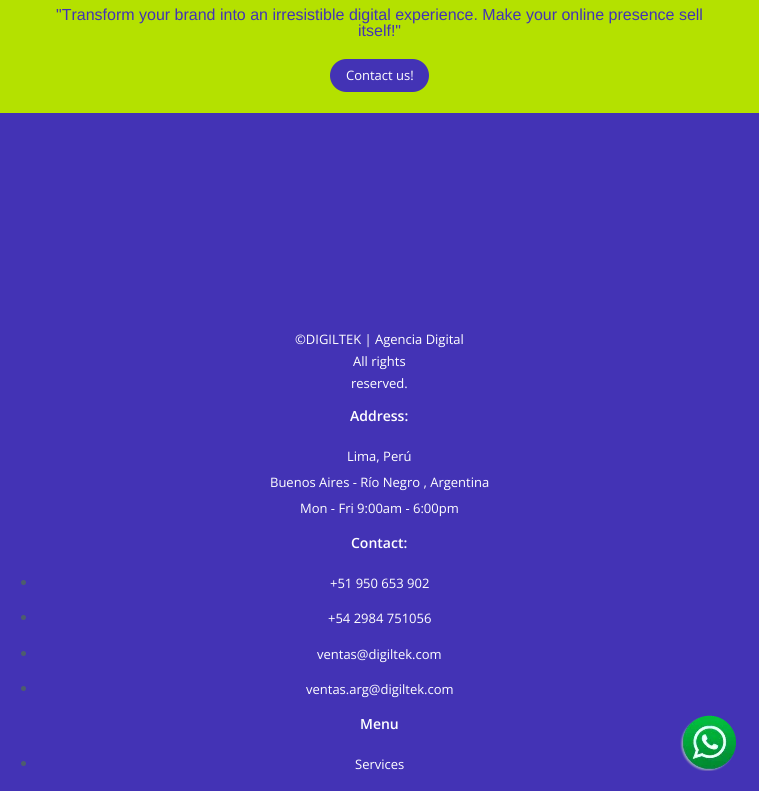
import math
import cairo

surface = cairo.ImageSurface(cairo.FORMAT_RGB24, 759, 791)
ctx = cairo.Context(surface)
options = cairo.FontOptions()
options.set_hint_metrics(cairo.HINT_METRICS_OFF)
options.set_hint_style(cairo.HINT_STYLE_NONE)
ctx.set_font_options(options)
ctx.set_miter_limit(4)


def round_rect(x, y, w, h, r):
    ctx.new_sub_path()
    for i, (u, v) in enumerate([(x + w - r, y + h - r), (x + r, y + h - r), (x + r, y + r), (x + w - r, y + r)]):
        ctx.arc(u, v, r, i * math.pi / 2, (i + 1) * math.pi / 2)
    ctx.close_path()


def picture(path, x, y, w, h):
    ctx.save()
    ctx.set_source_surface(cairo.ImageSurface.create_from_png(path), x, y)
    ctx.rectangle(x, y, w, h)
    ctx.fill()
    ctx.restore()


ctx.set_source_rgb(0.706, 0.882, 0)
ctx.paint()
ctx.select_font_face("Liberation Sans")
ctx.set_font_size(16)
ctx.set_source_rgb(0.263, 0.2, 0.71)
ctx.move_to(56, 20)
ctx.show_text("\"Transform your brand into an irresistible digital experience. Make your online presence sell")
ctx.move_to(358, 36)
ctx.show_text("itself!\"")
round_rect(330, 59, 99, 33, 16.5)
ctx.fill()
ctx.select_font_face("Open Sans")
ctx.set_font_size(13)
ctx.set_source_rgb(1, 1, 1)
ctx.move_to(346, 80)
ctx.show_text("Contact us!")
ctx.set_source_rgb(0.263, 0.2, 0.71)
ctx.rectangle(0, 113, 759, 678)
ctx.fill()
ctx.set_source_rgb(1, 1, 1)
ctx.move_to(295, 344)
ctx.show_text("©DIGILTEK | Agencia Digital")
ctx.move_to(353, 366)
ctx.show_text("All rights")
ctx.move_to(351, 388)
ctx.show_text("reserved.")
ctx.select_font_face("Open Sans SemiBold")
ctx.set_font_size(14)
ctx.move_to(350, 421)
ctx.show_text("Address:")
ctx.select_font_face("Open Sans")
ctx.set_font_size(13)
ctx.move_to(347, 461)
ctx.show_text("Lima, Perú")
ctx.move_to(270, 487)
ctx.show_text("Buenos Aires - Río Negro , Argentina")
ctx.move_to(300, 513)
ctx.show_text("Mon - Fri 9:00am - 6:00pm")
ctx.select_font_face("Open Sans SemiBold")
ctx.set_font_size(14)
ctx.move_to(351, 548)
ctx.show_text("Contact:")
ctx.set_source_rgb(0.302, 0.365, 0.427)
ctx.new_path()
ctx.arc(23.5, 582.5, 2.5, 0, 2 * math.pi)
ctx.fill()
ctx.select_font_face("Open Sans")
ctx.set_font_size(13)
ctx.set_source_rgb(1, 1, 1)
ctx.move_to(330, 588)
ctx.show_text("+51 950 653 902")
ctx.set_source_rgb(0.302, 0.365, 0.427)
ctx.new_path()
ctx.arc(23.5, 617.5, 2.5, 0, 2 * math.pi)
ctx.fill()
ctx.set_source_rgb(1, 1, 1)
ctx.move_to(328, 623)
ctx.show_text("+54 2984 751056")
ctx.set_source_rgb(0.302, 0.365, 0.427)
ctx.new_path()
ctx.arc(23.5, 653.5, 2.5, 0, 2 * math.pi)
ctx.fill()
ctx.set_source_rgb(1, 1, 1)
ctx.move_to(317, 659)
ctx.show_text("ventas@digiltek.com")
ctx.set_source_rgb(0.302, 0.365, 0.427)
ctx.new_path()
ctx.arc(23.5, 688.5, 2.5, 0, 2 * math.pi)
ctx.fill()
ctx.set_source_rgb(1, 1, 1)
ctx.move_to(306, 694)
ctx.show_text("ventas.arg@digiltek.com")
ctx.select_font_face("Open Sans SemiBold")
ctx.set_font_size(14)
ctx.move_to(360, 729)
ctx.show_text("Menu")
ctx.set_source_rgb(0.302, 0.365, 0.427)
ctx.new_path()
ctx.arc(23.5, 763.5, 2.5, 0, 2 * math.pi)
ctx.fill()
ctx.select_font_face("Open Sans")
ctx.set_font_size(13)
ctx.set_source_rgb(1, 1, 1)
ctx.move_to(355, 769)
ctx.show_text("Services")
picture("img1.png", 680, 715, 56, 56)
surface.write_to_png("page.png")
